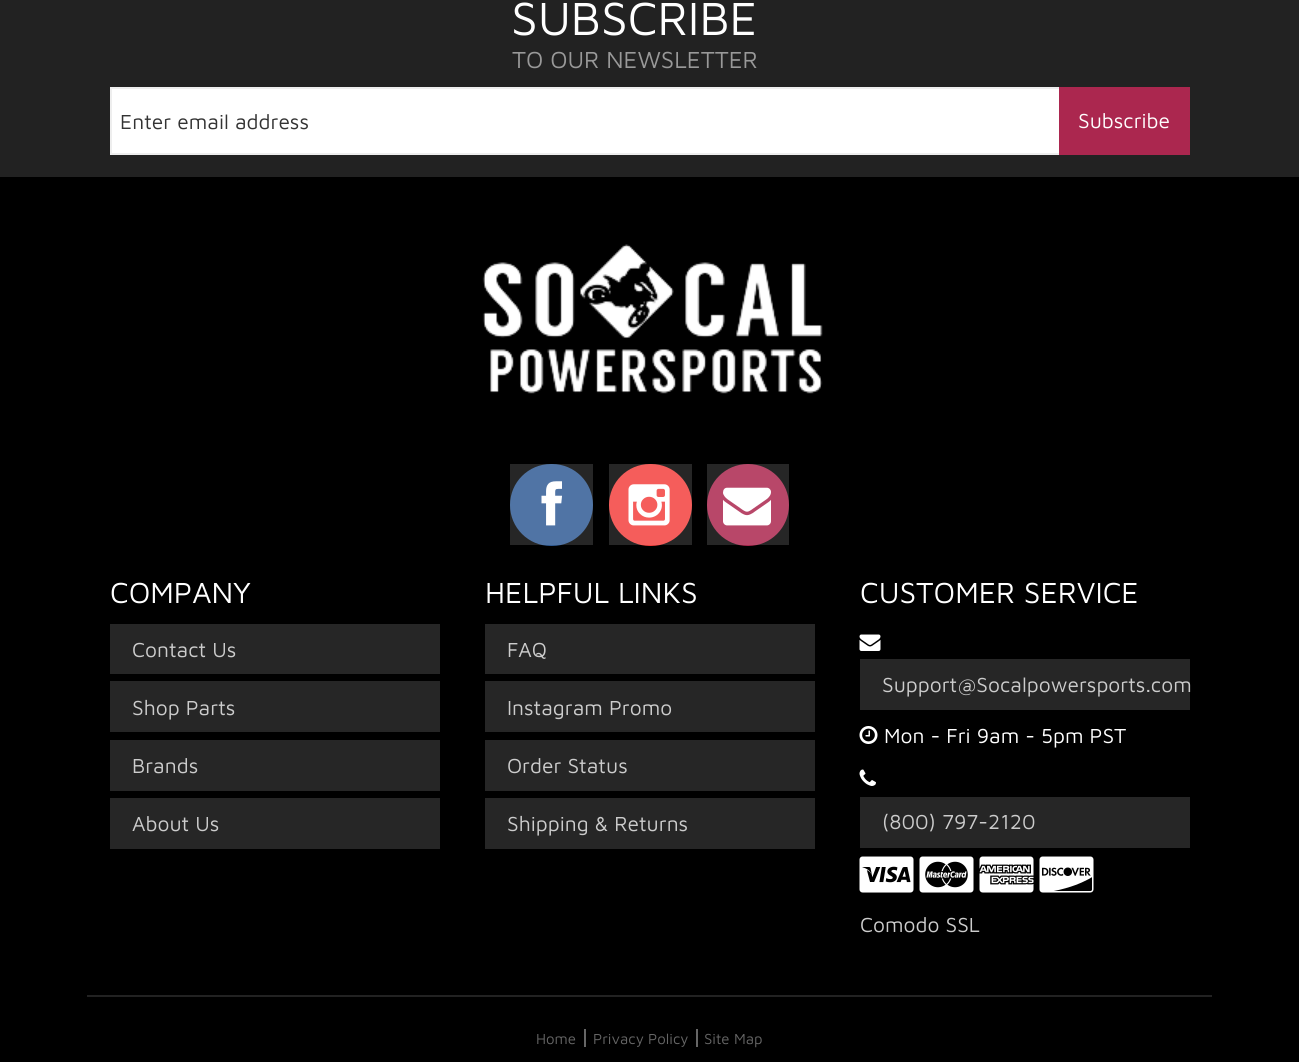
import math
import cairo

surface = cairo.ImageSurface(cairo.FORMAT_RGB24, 1299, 1062)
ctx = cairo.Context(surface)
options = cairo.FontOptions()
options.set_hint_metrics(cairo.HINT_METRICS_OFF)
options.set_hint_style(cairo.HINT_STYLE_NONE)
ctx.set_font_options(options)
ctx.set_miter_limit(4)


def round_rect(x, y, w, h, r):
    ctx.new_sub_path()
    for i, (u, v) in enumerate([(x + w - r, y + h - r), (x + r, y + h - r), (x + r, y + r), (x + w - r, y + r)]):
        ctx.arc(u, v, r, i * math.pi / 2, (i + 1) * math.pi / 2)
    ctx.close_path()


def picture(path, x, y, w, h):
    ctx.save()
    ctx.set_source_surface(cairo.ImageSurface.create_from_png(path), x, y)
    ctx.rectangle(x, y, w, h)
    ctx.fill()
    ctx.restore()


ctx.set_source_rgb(0, 0, 0)
ctx.paint()
ctx.set_source_rgb(0.133, 0.133, 0.133)
ctx.rectangle(0, 0, 1299, 177)
ctx.fill()
ctx.select_font_face("Maven Pro")
ctx.set_font_size(48)
ctx.set_source_rgb(1, 1, 1)
ctx.move_to(511, 35)
ctx.show_text("SUBSCRIBE")
ctx.set_font_size(24)
ctx.set_source_rgb(0.6, 0.6, 0.6)
ctx.move_to(512, 68)
ctx.show_text("TO OUR NEWSLETTER")
ctx.set_source_rgb(1, 1, 1)
ctx.rectangle(112, 89, 947, 64)
ctx.fill()
ctx.rectangle(111, 88, 1078, 66)
ctx.set_source_rgb(0.933, 0.933, 0.933)
ctx.stroke()
ctx.set_font_size(21)
ctx.set_source_rgb(0.2, 0.2, 0.2)
ctx.move_to(120, 129)
ctx.show_text("Enter email address")
ctx.set_source_rgb(0.671, 0.153, 0.31)
ctx.rectangle(1059, 87, 131, 68)
ctx.fill()
ctx.set_source_rgb(1, 1, 1)
ctx.move_to(1078, 128)
ctx.show_text("Subscribe")
picture("img1.png", 482, 244, 341, 150)
ctx.set_source_rgb(0.192, 0.361, 0.584)
round_rect(510, 464, 83, 82, 41)
ctx.fill()
ctx.set_source_rgba(1, 1, 1, 0.15)
ctx.rectangle(510, 464, 83, 81)
ctx.fill()
picture("img2.png", 541, 481, 21, 45)
ctx.set_source_rgb(0.953, 0.255, 0.243)
round_rect(609, 464, 83, 82, 41)
ctx.fill()
ctx.set_source_rgba(1, 1, 1, 0.15)
ctx.rectangle(609, 464, 83, 81)
ctx.fill()
picture("img3.png", 628, 484, 42, 42)
ctx.set_source_rgb(0.671, 0.153, 0.31)
ctx.arc(748, 505, 41, 0, 2 * math.pi)
ctx.fill()
ctx.set_source_rgba(1, 1, 1, 0.15)
ctx.rectangle(707, 464, 82, 81)
ctx.fill()
picture("img4.png", 723, 487, 48, 39)
ctx.set_font_size(30)
ctx.set_source_rgb(1, 1, 1)
ctx.move_to(110, 603)
ctx.show_text("COMPANY")
ctx.set_source_rgb(0.149, 0.149, 0.149)
ctx.rectangle(110, 624, 330, 50)
ctx.fill()
ctx.set_font_size(21)
ctx.set_source_rgb(0.8, 0.8, 0.8)
ctx.move_to(132, 657)
ctx.show_text("Contact Us")
ctx.set_source_rgb(0.149, 0.149, 0.149)
ctx.rectangle(110, 681, 330, 51)
ctx.fill()
ctx.set_source_rgb(0.8, 0.8, 0.8)
ctx.move_to(132, 715)
ctx.show_text("Shop Parts")
ctx.set_source_rgb(0.149, 0.149, 0.149)
ctx.rectangle(110, 740, 330, 51)
ctx.fill()
ctx.set_source_rgb(0.8, 0.8, 0.8)
ctx.move_to(132, 773)
ctx.show_text("Brands")
ctx.set_source_rgb(0.149, 0.149, 0.149)
ctx.rectangle(110, 798, 330, 51)
ctx.fill()
ctx.set_source_rgb(0.8, 0.8, 0.8)
ctx.move_to(132, 831)
ctx.show_text("About Us")
ctx.set_font_size(30)
ctx.set_source_rgb(1, 1, 1)
ctx.move_to(485, 603)
ctx.show_text("HELPFUL LINKS")
ctx.set_source_rgb(0.149, 0.149, 0.149)
ctx.rectangle(485, 624, 330, 50)
ctx.fill()
ctx.set_font_size(21)
ctx.set_source_rgb(0.8, 0.8, 0.8)
ctx.move_to(507, 657)
ctx.show_text("FAQ")
ctx.set_source_rgb(0.149, 0.149, 0.149)
ctx.rectangle(485, 681, 330, 51)
ctx.fill()
ctx.set_source_rgb(0.8, 0.8, 0.8)
ctx.move_to(507, 715)
ctx.show_text("Instagram Promo")
ctx.set_source_rgb(0.149, 0.149, 0.149)
ctx.rectangle(485, 740, 330, 51)
ctx.fill()
ctx.set_source_rgb(0.8, 0.8, 0.8)
ctx.move_to(507, 773)
ctx.show_text("Order Status")
ctx.set_source_rgb(0.149, 0.149, 0.149)
ctx.rectangle(485, 798, 330, 51)
ctx.fill()
ctx.set_source_rgb(0.8, 0.8, 0.8)
ctx.move_to(507, 831)
ctx.show_text("Shipping & Returns")
ctx.set_font_size(30)
ctx.set_source_rgb(1, 1, 1)
ctx.move_to(860, 603)
ctx.show_text("CUSTOMER SERVICE")
picture("img5.png", 859, 634, 22, 17)
ctx.set_source_rgb(0.149, 0.149, 0.149)
ctx.rectangle(860, 659, 330, 51)
ctx.fill()
ctx.set_font_size(21)
ctx.set_source_rgb(0.8, 0.8, 0.8)
ctx.move_to(882, 692)
ctx.show_text("Support@Socalpowersports.com")
picture("img6.png", 859, 726, 19, 18)
ctx.set_source_rgb(1, 1, 1)
ctx.move_to(884, 743)
ctx.show_text("Mon - Fri 9am - 5pm PST")
picture("img7.png", 859, 769, 17, 17)
ctx.set_source_rgb(0.149, 0.149, 0.149)
ctx.rectangle(860, 797, 330, 51)
ctx.fill()
ctx.set_source_rgb(0.8, 0.8, 0.8)
ctx.move_to(882, 829)
ctx.show_text("(800) 797-2120")
picture("img8.png", 859, 856, 55, 37)
picture("img9.png", 919, 856, 55, 37)
picture("img10.png", 979, 856, 55, 37)
picture("img11.png", 1039, 856, 55, 37)
ctx.move_to(860, 932)
ctx.show_text("Comodo SSL")
ctx.set_source_rgb(0.133, 0.133, 0.133)
ctx.rectangle(87, 995, 1125, 2)
ctx.fill()
ctx.set_font_size(15)
ctx.set_source_rgb(0.4, 0.4, 0.4)
ctx.move_to(536, 1044)
ctx.show_text("Home")
ctx.rectangle(584, 1029, 2, 18)
ctx.fill()
ctx.move_to(593, 1044)
ctx.show_text("Privacy Policy")
ctx.rectangle(696, 1029, 2, 18)
ctx.fill()
ctx.move_to(704, 1044)
ctx.show_text("Site Map")
surface.write_to_png("page.png")
